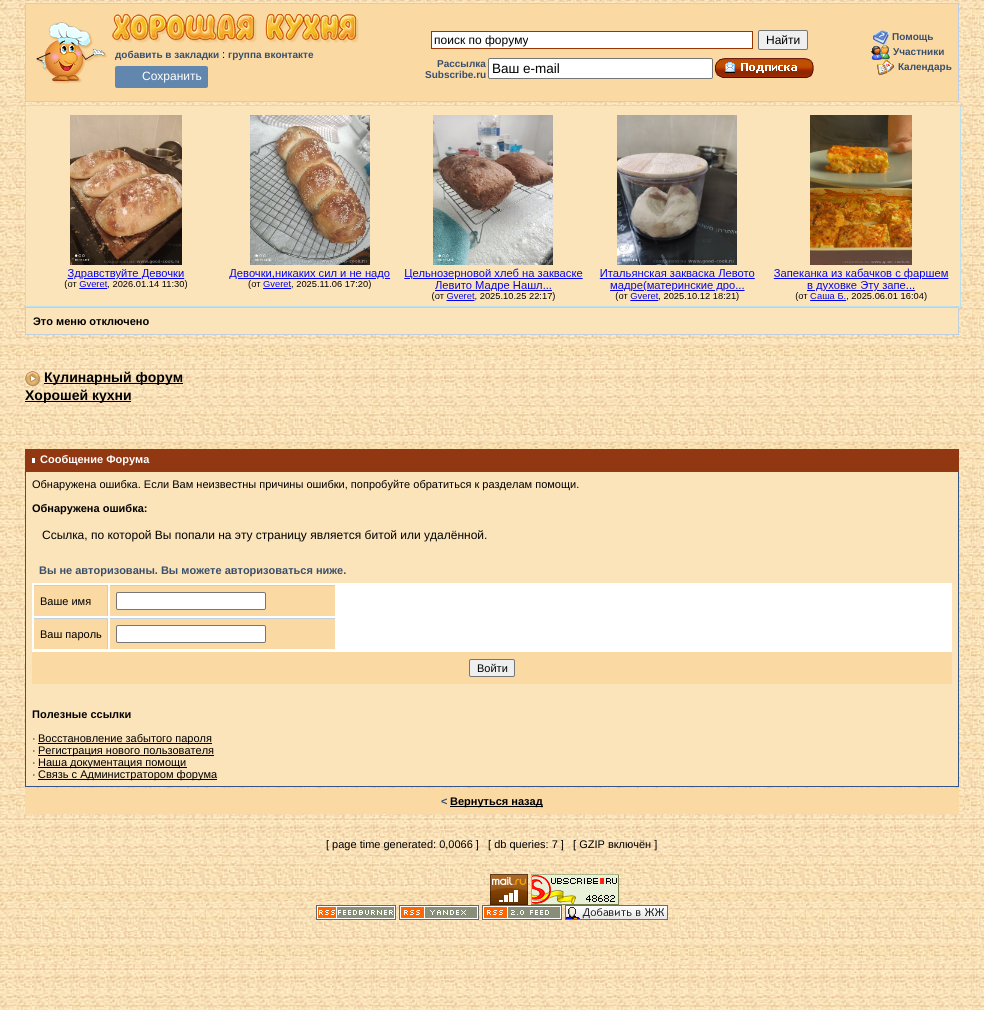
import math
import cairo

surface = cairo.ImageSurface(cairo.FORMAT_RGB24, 984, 1010)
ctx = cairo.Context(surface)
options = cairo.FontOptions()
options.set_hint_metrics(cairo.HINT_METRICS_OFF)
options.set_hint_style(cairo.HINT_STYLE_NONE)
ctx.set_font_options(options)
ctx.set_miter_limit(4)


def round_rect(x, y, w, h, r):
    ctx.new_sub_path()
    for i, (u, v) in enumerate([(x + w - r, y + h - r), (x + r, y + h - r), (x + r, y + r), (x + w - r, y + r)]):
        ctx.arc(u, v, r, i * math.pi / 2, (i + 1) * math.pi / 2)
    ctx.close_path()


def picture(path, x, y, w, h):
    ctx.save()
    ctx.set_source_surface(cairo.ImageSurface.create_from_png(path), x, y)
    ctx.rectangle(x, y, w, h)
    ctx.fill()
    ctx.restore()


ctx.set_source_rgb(1, 1, 1)
ctx.paint()
picture("img1.png", 0, 0, 984, 1010)
ctx.set_source_rgb(0.98, 0.851, 0.639)
ctx.rectangle(25.5, 3.5, 933, 98)
ctx.fill_preserve()
ctx.set_source_rgb(0.737, 0.816, 0.929)
ctx.set_line_width(1)
ctx.stroke()
picture("img2.png", 36, 22, 71, 62)
picture("img3.png", 112, 14, 247, 29)
ctx.select_font_face("Liberation Sans", cairo.FONT_SLANT_NORMAL, cairo.FONT_WEIGHT_BOLD)
ctx.set_font_size(10)
ctx.set_source_rgb(0.227, 0.31, 0.424)
ctx.move_to(115, 58)
ctx.show_text("добавить в закладки")
ctx.select_font_face("Liberation Sans")
ctx.set_font_size(11)
ctx.set_source_rgb(0, 0, 0)
ctx.move_to(222, 58)
ctx.show_text(":")
ctx.select_font_face("Liberation Sans", cairo.FONT_SLANT_NORMAL, cairo.FONT_WEIGHT_BOLD)
ctx.set_font_size(10)
ctx.set_source_rgb(0.227, 0.31, 0.424)
ctx.move_to(228, 58)
ctx.show_text("группа вконтакте")
ctx.set_source_rgb(0.384, 0.529, 0.682)
ctx.new_path()
ctx.move_to(117, 66)
ctx.line_to(142, 66)
ctx.line_to(142, 88)
ctx.line_to(117, 88)
ctx.curve_to(116, 88, 115, 87, 115, 86)
ctx.line_to(115, 68)
ctx.curve_to(115, 67, 116, 66, 117, 66)
ctx.close_path()
ctx.fill()
ctx.new_path()
ctx.move_to(142, 66)
ctx.line_to(206, 66)
ctx.curve_to(207, 66, 208, 67, 208, 68)
ctx.line_to(208, 86)
ctx.curve_to(208, 87, 207, 88, 206, 88)
ctx.line_to(142, 88)
ctx.close_path()
ctx.fill()
ctx.select_font_face("Liberation Sans")
ctx.set_font_size(12)
ctx.set_source_rgb(1, 1, 1)
ctx.move_to(142, 80)
ctx.show_text("Сохранить")
ctx.rectangle(431.5, 31.5, 321, 17)
ctx.fill_preserve()
ctx.set_source_rgb(0.6, 0.2, 0)
ctx.stroke()
ctx.set_source_rgb(0, 0, 0)
ctx.move_to(434, 44)
ctx.show_text("поиск по форуму")
ctx.set_source_rgb(0.937, 0.937, 0.937)
round_rect(758.5, 30.5, 49, 19, 1.5)
ctx.fill_preserve()
ctx.set_source_rgb(0.463, 0.463, 0.463)
ctx.stroke()
ctx.set_source_rgb(0, 0, 0)
ctx.move_to(766, 44)
ctx.show_text("Найти")
ctx.select_font_face("Liberation Sans", cairo.FONT_SLANT_NORMAL, cairo.FONT_WEIGHT_BOLD)
ctx.set_font_size(10)
ctx.set_source_rgb(0.227, 0.31, 0.424)
ctx.move_to(437, 67)
ctx.show_text("Рассылка")
ctx.move_to(425, 78)
ctx.show_text("Subscribe.ru")
ctx.set_source_rgb(1, 1, 1)
round_rect(488.5, 58.5, 224, 20, 1.5)
ctx.fill_preserve()
ctx.set_source_rgb(0.463, 0.463, 0.463)
ctx.stroke()
ctx.select_font_face("Liberation Sans")
ctx.set_font_size(13.5)
ctx.set_source_rgb(0, 0, 0)
ctx.move_to(492, 73)
ctx.show_text("Ваш e-mail")
picture("img4.png", 715, 58, 99, 20)
picture("img5.png", 873, 30, 16, 15)
ctx.select_font_face("Liberation Sans", cairo.FONT_SLANT_NORMAL, cairo.FONT_WEIGHT_BOLD)
ctx.set_font_size(10)
ctx.set_source_rgb(0.227, 0.31, 0.424)
ctx.move_to(892, 40)
ctx.show_text("Помощь")
picture("img6.png", 871, 45, 19, 15)
ctx.move_to(893, 55)
ctx.show_text("Участники")
picture("img7.png", 877, 60, 18, 15)
ctx.move_to(898, 70)
ctx.show_text("Календарь")
ctx.set_source_rgb(0.984, 0.89, 0.729)
ctx.rectangle(25.5, 105.5, 935, 201)
ctx.fill_preserve()
ctx.set_source_rgb(0.737, 0.878, 0.929)
ctx.stroke()
picture("img8.png", 64, 115, 885, 186)
ctx.set_source_rgb(0.984, 0.89, 0.729)
ctx.rectangle(25.5, 307.5, 933, 27)
ctx.fill_preserve()
ctx.set_source_rgb(0.761, 0.812, 0.875)
ctx.stroke()
ctx.set_font_size(11)
ctx.set_source_rgb(0, 0, 0)
ctx.move_to(33, 325)
ctx.show_text("Это меню отключено")
picture("img9.png", 25, 371, 15, 15)
ctx.rectangle(44, 383, 139, 1)
ctx.fill()
ctx.set_font_size(14)
ctx.move_to(44, 382)
ctx.show_text("Кулинарный форум")
ctx.rectangle(25, 401, 106, 1)
ctx.fill()
ctx.move_to(25, 400)
ctx.show_text("Хорошей кухни")
ctx.set_source_rgb(0.569, 0.22, 0.078)
ctx.rectangle(25, 449, 934, 22)
ctx.fill()
ctx.set_source_rgb(1, 1, 1)
ctx.rectangle(32, 458, 3, 5)
ctx.fill()
ctx.set_font_size(11)
ctx.move_to(40, 463)
ctx.show_text("Сообщение Форума")
ctx.set_source_rgb(0.984, 0.89, 0.729)
ctx.rectangle(25.5, 471.5, 933, 315)
ctx.fill_preserve()
ctx.set_source_rgb(0.204, 0.329, 0.529)
ctx.stroke()
ctx.select_font_face("Liberation Sans")
ctx.set_source_rgb(0, 0, 0)
ctx.move_to(32, 488)
ctx.show_text("Обнаружена ошибка. Если Вам неизвестны причины ошибки, попробуйте обратиться к разделам помощи.")
ctx.select_font_face("Liberation Sans", cairo.FONT_SLANT_NORMAL, cairo.FONT_WEIGHT_BOLD)
ctx.move_to(32, 512)
ctx.show_text("Обнаружена ошибка:")
ctx.select_font_face("Liberation Sans")
ctx.set_font_size(12)
ctx.move_to(42, 539)
ctx.show_text("Ссылка, по которой Вы попали на эту страницу является битой или удалённой.")
ctx.set_source_rgb(1, 1, 1)
ctx.rectangle(32, 583, 920, 69)
ctx.fill()
ctx.select_font_face("Liberation Sans", cairo.FONT_SLANT_NORMAL, cairo.FONT_WEIGHT_BOLD)
ctx.set_font_size(11)
ctx.set_source_rgb(0.227, 0.31, 0.424)
ctx.move_to(39, 574)
ctx.show_text("Вы не авторизованы. Вы можете авторизоваться ниже.")
ctx.set_source_rgb(0.98, 0.851, 0.639)
ctx.rectangle(34, 586, 73, 30)
ctx.fill()
ctx.set_source_rgb(0.761, 0.812, 0.875)
ctx.rectangle(34, 585, 74, 1)
ctx.fill()
ctx.rectangle(107, 585, 1, 31)
ctx.fill()
ctx.select_font_face("Liberation Sans")
ctx.set_source_rgb(0, 0, 0)
ctx.move_to(40, 605)
ctx.show_text("Ваше имя")
ctx.set_source_rgb(0.98, 0.851, 0.639)
ctx.rectangle(110, 586, 225, 30)
ctx.fill()
ctx.set_source_rgb(0.761, 0.812, 0.875)
ctx.rectangle(110, 585, 225, 1)
ctx.fill()
ctx.set_source_rgb(1, 1, 1)
round_rect(116.5, 592.5, 149, 17, 1.5)
ctx.fill_preserve()
ctx.set_source_rgb(0.463, 0.463, 0.463)
ctx.stroke()
ctx.set_source_rgb(0.98, 0.851, 0.639)
ctx.rectangle(34, 619, 73, 30)
ctx.fill()
ctx.set_source_rgb(0.761, 0.812, 0.875)
ctx.rectangle(34, 618, 74, 1)
ctx.fill()
ctx.rectangle(107, 618, 1, 31)
ctx.fill()
ctx.set_source_rgb(0, 0, 0)
ctx.move_to(40, 638)
ctx.show_text("Ваш пароль")
ctx.set_source_rgb(0.98, 0.851, 0.639)
ctx.rectangle(110, 619, 225, 30)
ctx.fill()
ctx.set_source_rgb(0.761, 0.812, 0.875)
ctx.rectangle(110, 618, 225, 1)
ctx.fill()
ctx.set_source_rgb(1, 1, 1)
round_rect(116.5, 625.5, 149, 17, 1.5)
ctx.fill_preserve()
ctx.set_source_rgb(0.463, 0.463, 0.463)
ctx.stroke()
ctx.set_source_rgb(0.98, 0.851, 0.639)
ctx.rectangle(32, 652, 920, 32)
ctx.fill()
ctx.set_source_rgb(0.937, 0.937, 0.937)
round_rect(469.5, 659.5, 45, 17, 1.5)
ctx.fill_preserve()
ctx.set_source_rgb(0.463, 0.463, 0.463)
ctx.stroke()
ctx.set_source_rgb(0, 0, 0)
ctx.move_to(477, 672)
ctx.show_text("Войти")
ctx.select_font_face("Liberation Sans", cairo.FONT_SLANT_NORMAL, cairo.FONT_WEIGHT_BOLD)
ctx.move_to(32, 718)
ctx.show_text("Полезные ссылки")
ctx.select_font_face("Liberation Sans")
ctx.move_to(32, 742)
ctx.show_text("·")
ctx.rectangle(38, 743, 174, 1)
ctx.fill()
ctx.move_to(38, 742)
ctx.show_text("Восстановление забытого пароля")
ctx.move_to(32, 754)
ctx.show_text("·")
ctx.rectangle(38, 755, 176, 1)
ctx.fill()
ctx.move_to(38, 754)
ctx.show_text("Регистрация нового пользователя")
ctx.move_to(32, 766)
ctx.show_text("·")
ctx.rectangle(38, 767, 149, 1)
ctx.fill()
ctx.move_to(38, 766)
ctx.show_text("Наша документация помощи")
ctx.move_to(32, 778)
ctx.show_text("·")
ctx.rectangle(38, 779, 179, 1)
ctx.fill()
ctx.move_to(38, 778)
ctx.show_text("Связь с Администратором форума")
ctx.set_source_rgb(0.98, 0.851, 0.639)
ctx.rectangle(25, 788, 934, 26)
ctx.fill()
ctx.select_font_face("Liberation Sans", cairo.FONT_SLANT_NORMAL, cairo.FONT_WEIGHT_BOLD)
ctx.set_source_rgb(0.227, 0.31, 0.424)
ctx.move_to(441, 805)
ctx.show_text("<")
ctx.set_source_rgb(0, 0, 0)
ctx.rectangle(450, 806, 93, 1)
ctx.fill()
ctx.move_to(450, 805)
ctx.show_text("Вернуться назад")
ctx.select_font_face("Liberation Sans")
ctx.move_to(326, 848)
ctx.show_text("[ page time generated: 0,0066 ]   [ db queries: 7 ]   [ GZIP включён ]")
picture("img10.png", 490, 874, 38, 31)
picture("img11.png", 531, 874, 88, 31)
picture("img12.png", 316, 905, 80, 15)
picture("img13.png", 399, 905, 80, 15)
picture("img14.png", 482, 905, 80, 15)
picture("img15.png", 565, 905, 103, 15)
surface.write_to_png("page.png")
